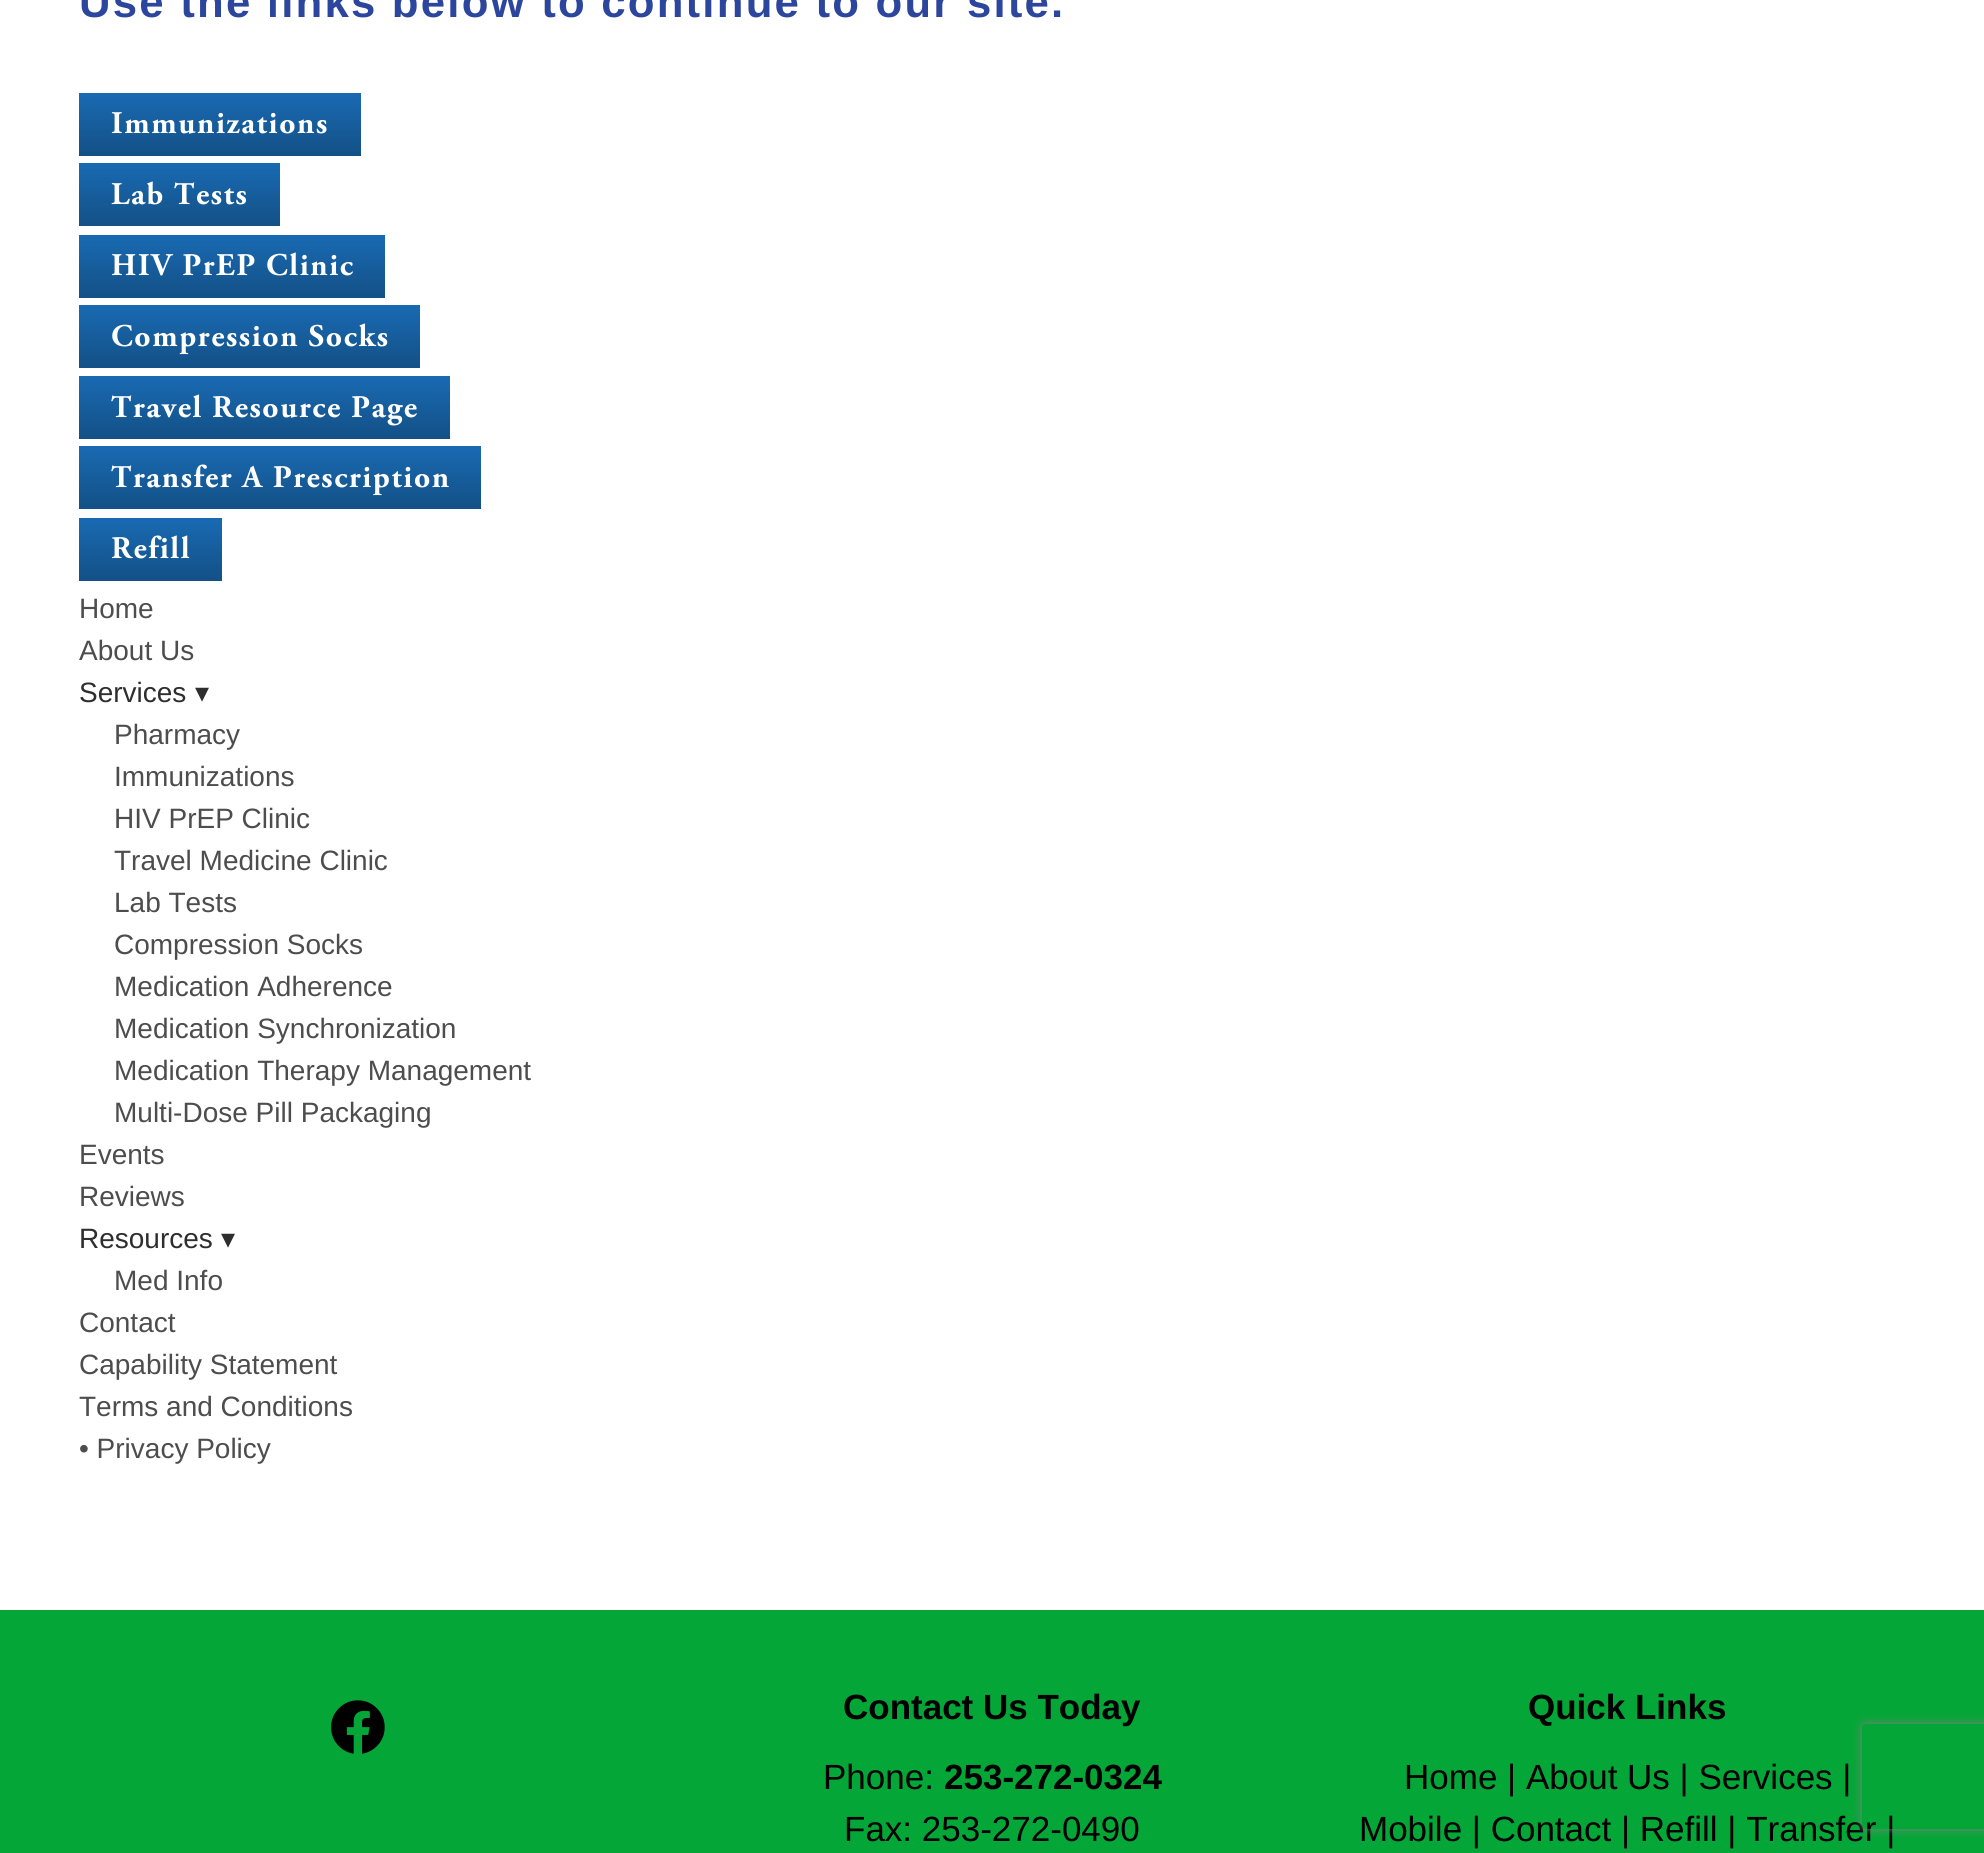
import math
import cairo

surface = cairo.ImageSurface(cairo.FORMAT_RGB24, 1984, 1853)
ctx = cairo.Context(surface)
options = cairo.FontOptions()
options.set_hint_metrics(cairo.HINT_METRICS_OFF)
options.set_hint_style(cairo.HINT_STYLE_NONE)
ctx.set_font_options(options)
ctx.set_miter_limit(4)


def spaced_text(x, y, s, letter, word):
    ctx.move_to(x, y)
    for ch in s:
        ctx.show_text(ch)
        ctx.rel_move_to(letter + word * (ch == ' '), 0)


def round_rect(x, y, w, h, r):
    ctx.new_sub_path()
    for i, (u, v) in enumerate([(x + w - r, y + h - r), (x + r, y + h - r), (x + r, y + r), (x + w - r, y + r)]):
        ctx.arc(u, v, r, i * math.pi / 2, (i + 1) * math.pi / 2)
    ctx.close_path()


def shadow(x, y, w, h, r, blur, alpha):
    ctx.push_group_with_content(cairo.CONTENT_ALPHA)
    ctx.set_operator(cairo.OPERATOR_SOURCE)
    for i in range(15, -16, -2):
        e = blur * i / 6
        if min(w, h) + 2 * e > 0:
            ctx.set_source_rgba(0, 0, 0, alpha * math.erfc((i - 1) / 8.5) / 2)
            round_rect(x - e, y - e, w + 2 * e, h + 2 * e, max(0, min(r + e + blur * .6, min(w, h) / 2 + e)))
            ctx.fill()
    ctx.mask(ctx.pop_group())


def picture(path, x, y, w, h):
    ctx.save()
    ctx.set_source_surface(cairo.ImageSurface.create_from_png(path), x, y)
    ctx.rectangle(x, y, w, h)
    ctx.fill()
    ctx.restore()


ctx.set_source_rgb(1, 1, 1)
ctx.paint()
ctx.select_font_face("Liberation Sans", cairo.FONT_SLANT_NORMAL, cairo.FONT_WEIGHT_BOLD)
ctx.set_font_size(43.75)
ctx.set_source_rgb(0.176, 0.275, 0.616)
spaced_text(79, 17, "Use the links below to continue to our site.", 2.2, 0)
gradient = cairo.LinearGradient(220, 93, 220, 156)
gradient.add_color_stop_rgba(0, 0.098, 0.416, 0.702, 1)
gradient.add_color_stop_rgba(1, 0.075, 0.314, 0.525, 1)
ctx.set_source(gradient)
ctx.rectangle(79, 93, 282, 63)
ctx.fill()
ctx.select_font_face("Adobe Garamond", cairo.FONT_SLANT_NORMAL, cairo.FONT_WEIGHT_BOLD)
ctx.set_font_size(31.5)
ctx.set_source_rgb(1, 1, 1)
spaced_text(111, 133, "Immunizations", 1.6, 0)
gradient = cairo.LinearGradient(179, 163, 179, 226)
gradient.add_color_stop_rgba(0, 0.098, 0.416, 0.702, 1)
gradient.add_color_stop_rgba(1, 0.075, 0.314, 0.525, 1)
ctx.set_source(gradient)
ctx.rectangle(79, 163, 201, 63)
ctx.fill()
ctx.set_source_rgb(1, 1, 1)
spaced_text(111, 204, "Lab Tests", 1.6, 0)
gradient = cairo.LinearGradient(232, 235, 232, 298)
gradient.add_color_stop_rgba(0, 0.098, 0.416, 0.702, 1)
gradient.add_color_stop_rgba(1, 0.075, 0.314, 0.525, 1)
ctx.set_source(gradient)
ctx.rectangle(79, 235, 306, 63)
ctx.fill()
ctx.set_source_rgb(1, 1, 1)
spaced_text(111, 275, "HIV PrEP Clinic", 1.6, 0)
gradient = cairo.LinearGradient(249, 305, 249, 368)
gradient.add_color_stop_rgba(0, 0.098, 0.416, 0.702, 1)
gradient.add_color_stop_rgba(1, 0.075, 0.314, 0.525, 1)
ctx.set_source(gradient)
ctx.rectangle(79, 305, 341, 63)
ctx.fill()
ctx.set_source_rgb(1, 1, 1)
spaced_text(111, 346, "Compression Socks", 1.6, 0)
gradient = cairo.LinearGradient(264, 376, 264, 439)
gradient.add_color_stop_rgba(0, 0.098, 0.416, 0.702, 1)
gradient.add_color_stop_rgba(1, 0.075, 0.314, 0.525, 1)
ctx.set_source(gradient)
ctx.rectangle(79, 376, 371, 63)
ctx.fill()
ctx.set_source_rgb(1, 1, 1)
spaced_text(111, 417, "Travel Resource Page", 1.6, 0)
gradient = cairo.LinearGradient(280, 446, 280, 509)
gradient.add_color_stop_rgba(0, 0.098, 0.416, 0.702, 1)
gradient.add_color_stop_rgba(1, 0.075, 0.314, 0.525, 1)
ctx.set_source(gradient)
ctx.rectangle(79, 446, 402, 63)
ctx.fill()
ctx.set_source_rgb(1, 1, 1)
spaced_text(111, 487, "Transfer A Prescription", 1.6, 0)
gradient = cairo.LinearGradient(151, 518, 151, 581)
gradient.add_color_stop_rgba(0, 0.098, 0.416, 0.702, 1)
gradient.add_color_stop_rgba(1, 0.075, 0.314, 0.525, 1)
ctx.set_source(gradient)
ctx.rectangle(79, 518, 143, 63)
ctx.fill()
ctx.set_source_rgb(1, 1, 1)
spaced_text(111, 558, "Refill", 1.6, 0)
ctx.select_font_face("Liberation Sans")
ctx.set_font_size(28)
ctx.set_source_rgb(0.302, 0.302, 0.302)
ctx.move_to(79, 618)
ctx.show_text("Home")
ctx.move_to(79, 660)
ctx.show_text("About Us")
ctx.set_source_rgb(0.18, 0.18, 0.18)
ctx.move_to(79, 702)
ctx.show_text("Services")
ctx.select_font_face("DejaVu Sans")
ctx.move_to(195, 702)
ctx.show_text("▾")
ctx.select_font_face("Liberation Sans")
ctx.set_source_rgb(0.302, 0.302, 0.302)
ctx.move_to(114, 744)
ctx.show_text("Pharmacy")
ctx.move_to(114, 786)
ctx.show_text("Immunizations")
ctx.move_to(114, 828)
ctx.show_text("HIV PrEP Clinic")
ctx.move_to(114, 870)
ctx.show_text("Travel Medicine Clinic")
ctx.move_to(114, 912)
ctx.show_text("Lab Tests")
ctx.move_to(114, 954)
ctx.show_text("Compression Socks")
ctx.move_to(114, 996)
ctx.show_text("Medication Adherence")
ctx.move_to(114, 1038)
ctx.show_text("Medication Synchronization")
ctx.move_to(114, 1080)
ctx.show_text("Medication Therapy Management")
ctx.move_to(114, 1122)
ctx.show_text("Multi-Dose Pill Packaging")
ctx.move_to(79, 1164)
ctx.show_text("Events")
ctx.move_to(79, 1206)
ctx.show_text("Reviews")
ctx.set_source_rgb(0.18, 0.18, 0.18)
ctx.move_to(79, 1248)
ctx.show_text("Resources")
ctx.select_font_face("DejaVu Sans")
ctx.move_to(221, 1248)
ctx.show_text("▾")
ctx.select_font_face("Liberation Sans")
ctx.set_source_rgb(0.302, 0.302, 0.302)
ctx.move_to(114, 1290)
ctx.show_text("Med Info")
ctx.move_to(79, 1332)
ctx.show_text("Contact")
ctx.move_to(79, 1374)
ctx.show_text("Capability Statement")
ctx.move_to(79, 1416)
ctx.show_text("Terms and Conditions")
ctx.move_to(79, 1458)
ctx.show_text("• Privacy Policy")
ctx.set_source_rgb(0.016, 0.651, 0.216)
ctx.rectangle(0, 1610, 1984, 243)
ctx.fill()
picture("img1.png", 331, 1700, 54, 54)
ctx.select_font_face("Liberation Sans", cairo.FONT_SLANT_NORMAL, cairo.FONT_WEIGHT_BOLD)
ctx.set_font_size(35)
ctx.set_source_rgb(0, 0, 0)
ctx.move_to(843, 1719)
ctx.show_text("Contact Us Today")
ctx.select_font_face("Liberation Sans")
ctx.move_to(823, 1789)
ctx.show_text("Phone:")
ctx.select_font_face("Liberation Sans", cairo.FONT_SLANT_NORMAL, cairo.FONT_WEIGHT_BOLD)
ctx.move_to(944, 1789)
ctx.show_text("253-272-0324")
ctx.select_font_face("Liberation Sans")
ctx.move_to(844, 1841)
ctx.show_text("Fax: 253-272-0490")
ctx.select_font_face("Liberation Sans", cairo.FONT_SLANT_NORMAL, cairo.FONT_WEIGHT_BOLD)
ctx.move_to(1528, 1719)
ctx.show_text("Quick Links")
ctx.select_font_face("Liberation Sans")
ctx.move_to(1404, 1789)
ctx.show_text("Home | About Us | Services |")
ctx.move_to(1359, 1841)
ctx.show_text("Mobile | Contact | Refill | Transfer |")
ctx.save()
ctx.set_fill_rule(cairo.FILL_RULE_EVEN_ODD)
ctx.new_path()
ctx.move_to(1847, 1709)
ctx.line_to(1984, 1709)
ctx.line_to(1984, 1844)
ctx.line_to(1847, 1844)
ctx.close_path()
ctx.move_to(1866, 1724)
ctx.line_to(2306, 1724)
ctx.curve_to(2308, 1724, 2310, 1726, 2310, 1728)
ctx.line_to(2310, 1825)
ctx.curve_to(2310, 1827, 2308, 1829, 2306, 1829)
ctx.line_to(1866, 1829)
ctx.curve_to(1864, 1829, 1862, 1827, 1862, 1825)
ctx.line_to(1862, 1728)
ctx.curve_to(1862, 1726, 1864, 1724, 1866, 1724)
ctx.close_path()
ctx.clip()
ctx.set_source_rgb(0.502, 0.502, 0.502)
shadow(1862, 1724, 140, 105, 4, 4.5, 1)
ctx.restore()
surface.write_to_png("page.png")
